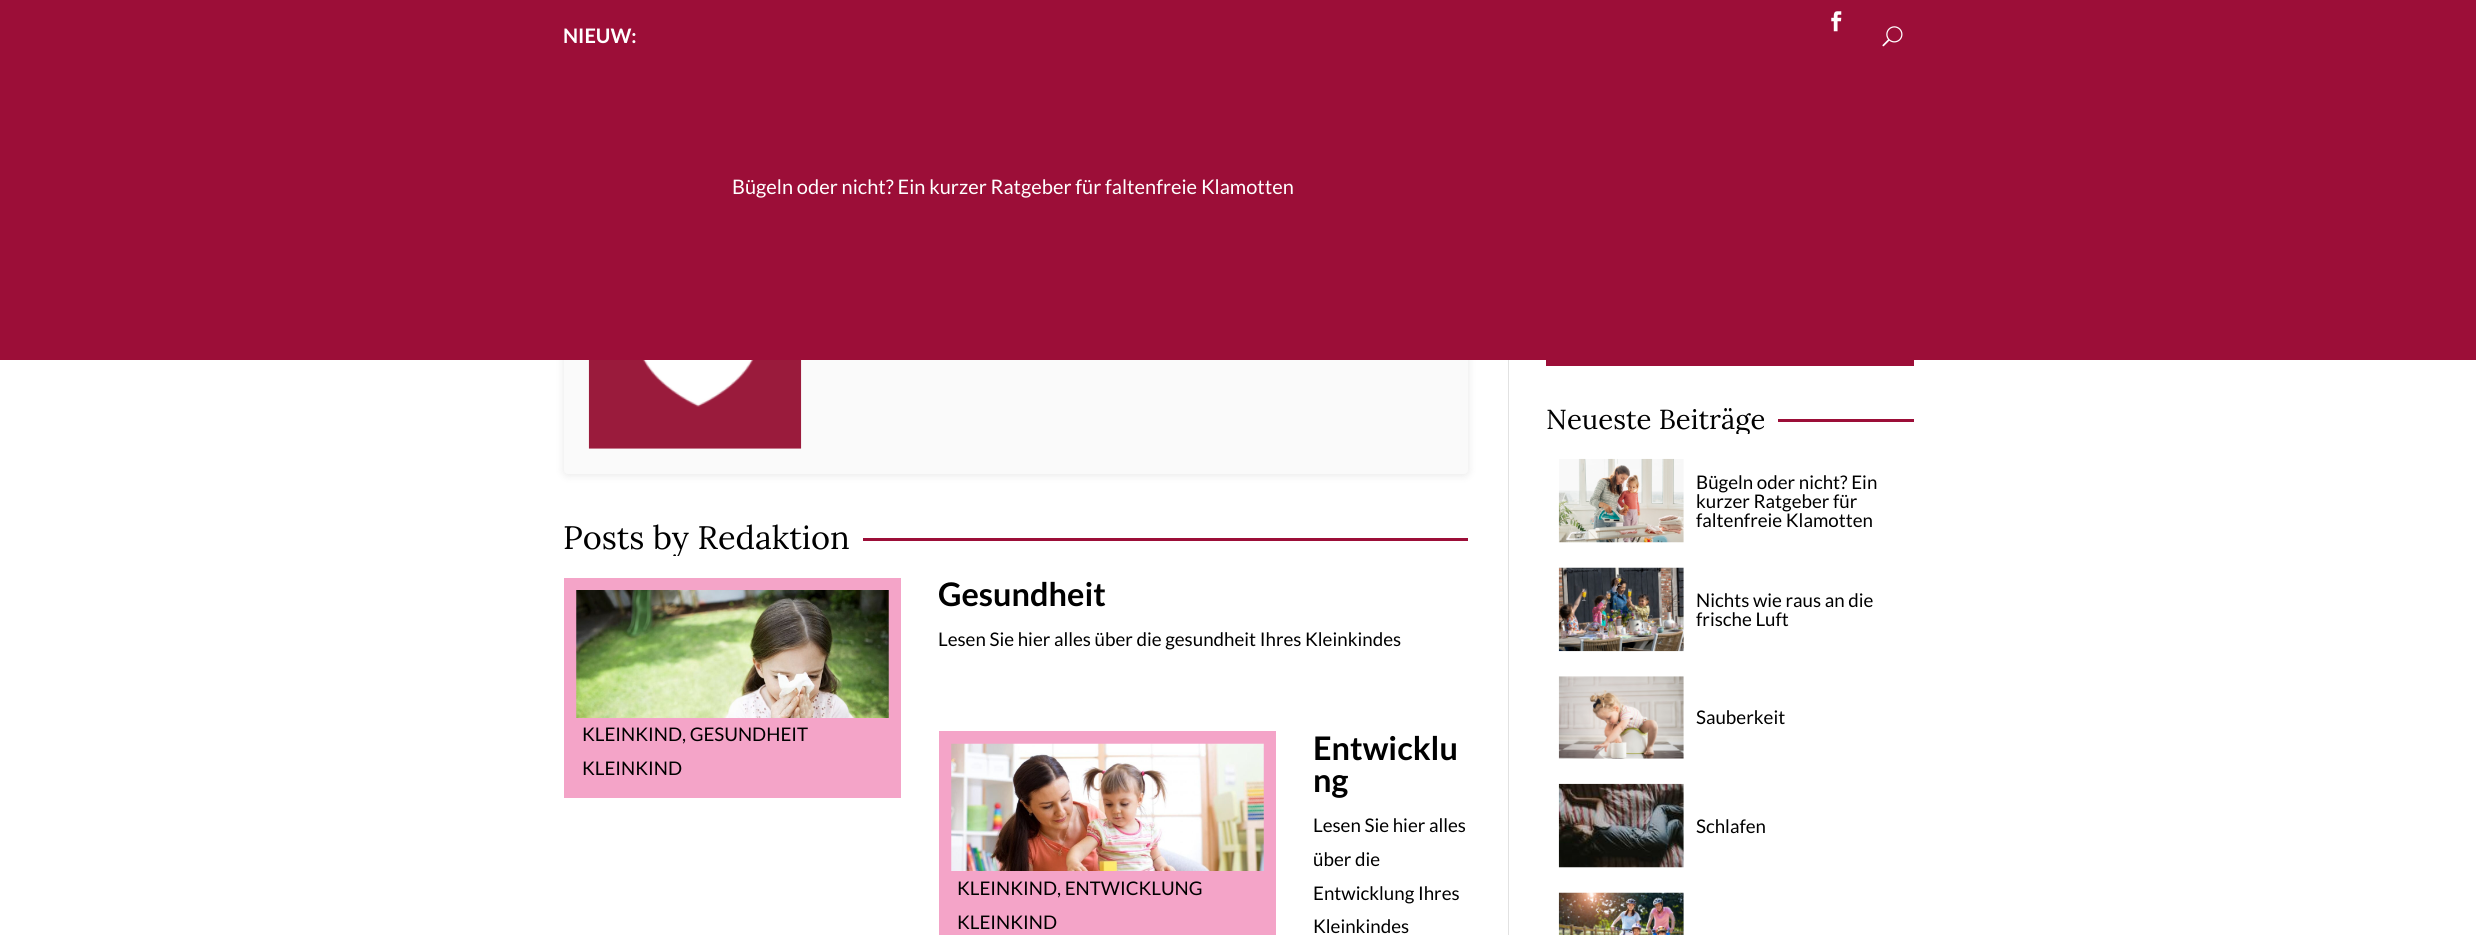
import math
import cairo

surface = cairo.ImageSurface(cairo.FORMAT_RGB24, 2476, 935)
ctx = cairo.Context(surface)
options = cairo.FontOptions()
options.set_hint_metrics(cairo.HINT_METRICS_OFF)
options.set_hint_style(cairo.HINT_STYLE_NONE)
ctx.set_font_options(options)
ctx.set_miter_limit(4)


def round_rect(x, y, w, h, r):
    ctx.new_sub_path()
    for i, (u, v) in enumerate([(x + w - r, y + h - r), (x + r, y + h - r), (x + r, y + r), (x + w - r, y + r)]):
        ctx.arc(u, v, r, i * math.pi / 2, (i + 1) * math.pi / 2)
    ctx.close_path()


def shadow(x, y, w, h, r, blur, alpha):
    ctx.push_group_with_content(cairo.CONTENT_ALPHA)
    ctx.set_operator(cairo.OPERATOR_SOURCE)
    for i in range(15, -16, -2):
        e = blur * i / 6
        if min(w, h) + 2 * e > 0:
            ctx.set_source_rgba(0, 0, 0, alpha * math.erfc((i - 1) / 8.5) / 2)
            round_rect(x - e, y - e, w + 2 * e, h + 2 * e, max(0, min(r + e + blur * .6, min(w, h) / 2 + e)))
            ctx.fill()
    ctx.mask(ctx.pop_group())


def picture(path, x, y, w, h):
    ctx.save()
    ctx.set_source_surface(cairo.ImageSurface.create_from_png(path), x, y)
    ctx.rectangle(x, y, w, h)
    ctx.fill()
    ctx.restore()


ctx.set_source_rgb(1, 1, 1)
ctx.paint()
ctx.set_source_rgb(0, 0, 0)
shadow(564, 213, 904, 262, 4, 4.5, 0.1)
ctx.set_source_rgb(0.98, 0.98, 0.98)
round_rect(564, 211, 904, 263, 4)
ctx.fill()
ctx.set_source_rgb(0.612, 0.055, 0.22)
ctx.rectangle(0, 0, 2476, 360)
ctx.fill()
picture("img1.png", 1831, 11, 11, 21)
ctx.select_font_face("Lato", cairo.FONT_SLANT_NORMAL, cairo.FONT_WEIGHT_BOLD)
ctx.set_font_size(20)
ctx.set_source_rgb(1, 1, 1)
ctx.move_to(563, 43)
ctx.show_text("NIEUW:")
ctx.select_font_face("Lato")
ctx.move_to(732, 194)
ctx.show_text("Bügeln oder nicht? Ein kurzer Ratgeber für faltenfreie Klamotten")
picture("img2.png", 1882, 26, 21, 21)
ctx.set_source_rgb(0.886, 0.886, 0.886)
ctx.rectangle(1508, 360, 1, 575)
ctx.fill()
picture("img3.png", 588, 360, 214, 89)
ctx.save()
ctx.rectangle(564, 518, 904, 38)
ctx.clip()
ctx.select_font_face("Lora")
ctx.set_font_size(32.5)
ctx.set_source_rgb(0, 0, 0)
ctx.move_to(563, 549)
ctx.show_text("Posts by Redaktion")
ctx.restore()
ctx.set_source_rgb(0.612, 0.055, 0.22)
ctx.rectangle(863, 538, 605, 3)
ctx.fill()
ctx.select_font_face("Lato", cairo.FONT_SLANT_NORMAL, cairo.FONT_WEIGHT_BOLD)
ctx.set_font_size(32.5)
ctx.set_source_rgb(0, 0, 0)
ctx.move_to(938, 606)
ctx.show_text("Gesundheit")
ctx.select_font_face("Lato")
ctx.set_font_size(18.75)
ctx.move_to(938, 646)
ctx.show_text("Lesen Sie hier alles über die gesundheit Ihres Kleinkindes")
ctx.rectangle(570.5, 584.5, 324, 207)
ctx.set_source_rgb(0.957, 0.643, 0.784)
ctx.set_line_width(13)
ctx.stroke()
picture("img4.png", 576, 590, 313, 128)
ctx.rectangle(577, 718, 311, 67)
ctx.fill()
ctx.set_source_rgb(0, 0, 0)
ctx.move_to(582, 741)
ctx.show_text("KLEINKIND, GESUNDHEIT")
ctx.move_to(582, 775)
ctx.show_text("KLEINKIND")
ctx.rectangle(945.5, 737.5, 324, 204)
ctx.set_source_rgb(0.957, 0.643, 0.784)
ctx.stroke()
picture("img5.png", 951, 743, 313, 128)
ctx.rectangle(952, 871, 311, 64)
ctx.fill()
ctx.set_source_rgb(0, 0, 0)
ctx.move_to(957, 895)
ctx.show_text("KLEINKIND, ENTWICKLUNG")
ctx.move_to(957, 929)
ctx.show_text("KLEINKIND")
ctx.select_font_face("Lato", cairo.FONT_SLANT_NORMAL, cairo.FONT_WEIGHT_BOLD)
ctx.set_font_size(32.5)
ctx.move_to(1313, 760)
ctx.show_text("Entwicklu")
ctx.move_to(1313, 792)
ctx.show_text("ng")
ctx.select_font_face("Lato")
ctx.set_font_size(18.75)
ctx.move_to(1313, 832)
ctx.show_text("Lesen Sie hier alles")
ctx.move_to(1313, 866)
ctx.show_text("über die")
ctx.move_to(1313, 900)
ctx.show_text("Entwicklung Ihres")
ctx.move_to(1313, 933)
ctx.show_text("Kleinkindes")
ctx.set_source_rgb(0.612, 0.055, 0.22)
ctx.rectangle(1546, 360, 368, 6)
ctx.fill()
ctx.save()
ctx.rectangle(1546, 404, 368, 30)
ctx.clip()
ctx.select_font_face("Lora")
ctx.set_font_size(27.5)
ctx.set_source_rgb(0, 0, 0)
ctx.move_to(1546, 429)
ctx.show_text("Neueste Beiträge")
ctx.restore()
ctx.rectangle(1778, 419, 136, 3)
ctx.fill()
picture("img6.png", 1558, 458, 126, 85)
ctx.set_source_rgb(0, 0, 0)
ctx.move_to(1696, 489)
ctx.show_text("Bügeln oder nicht? Ein")
ctx.move_to(1696, 508)
ctx.show_text("kurzer Ratgeber für")
ctx.move_to(1696, 527)
ctx.show_text("faltenfreie Klamotten")
picture("img7.png", 1558, 567, 126, 85)
ctx.move_to(1696, 607)
ctx.show_text("Nichts wie raus an die")
ctx.move_to(1696, 626)
ctx.show_text("frische Luft")
picture("img8.png", 1558, 676, 126, 83)
ctx.move_to(1696, 724)
ctx.show_text("Sauberkeit")
picture("img9.png", 1558, 783, 126, 85)
ctx.move_to(1696, 833)
ctx.show_text("Schlafen")
picture("img10.png", 1558, 892, 126, 43)
surface.write_to_png("page.png")
